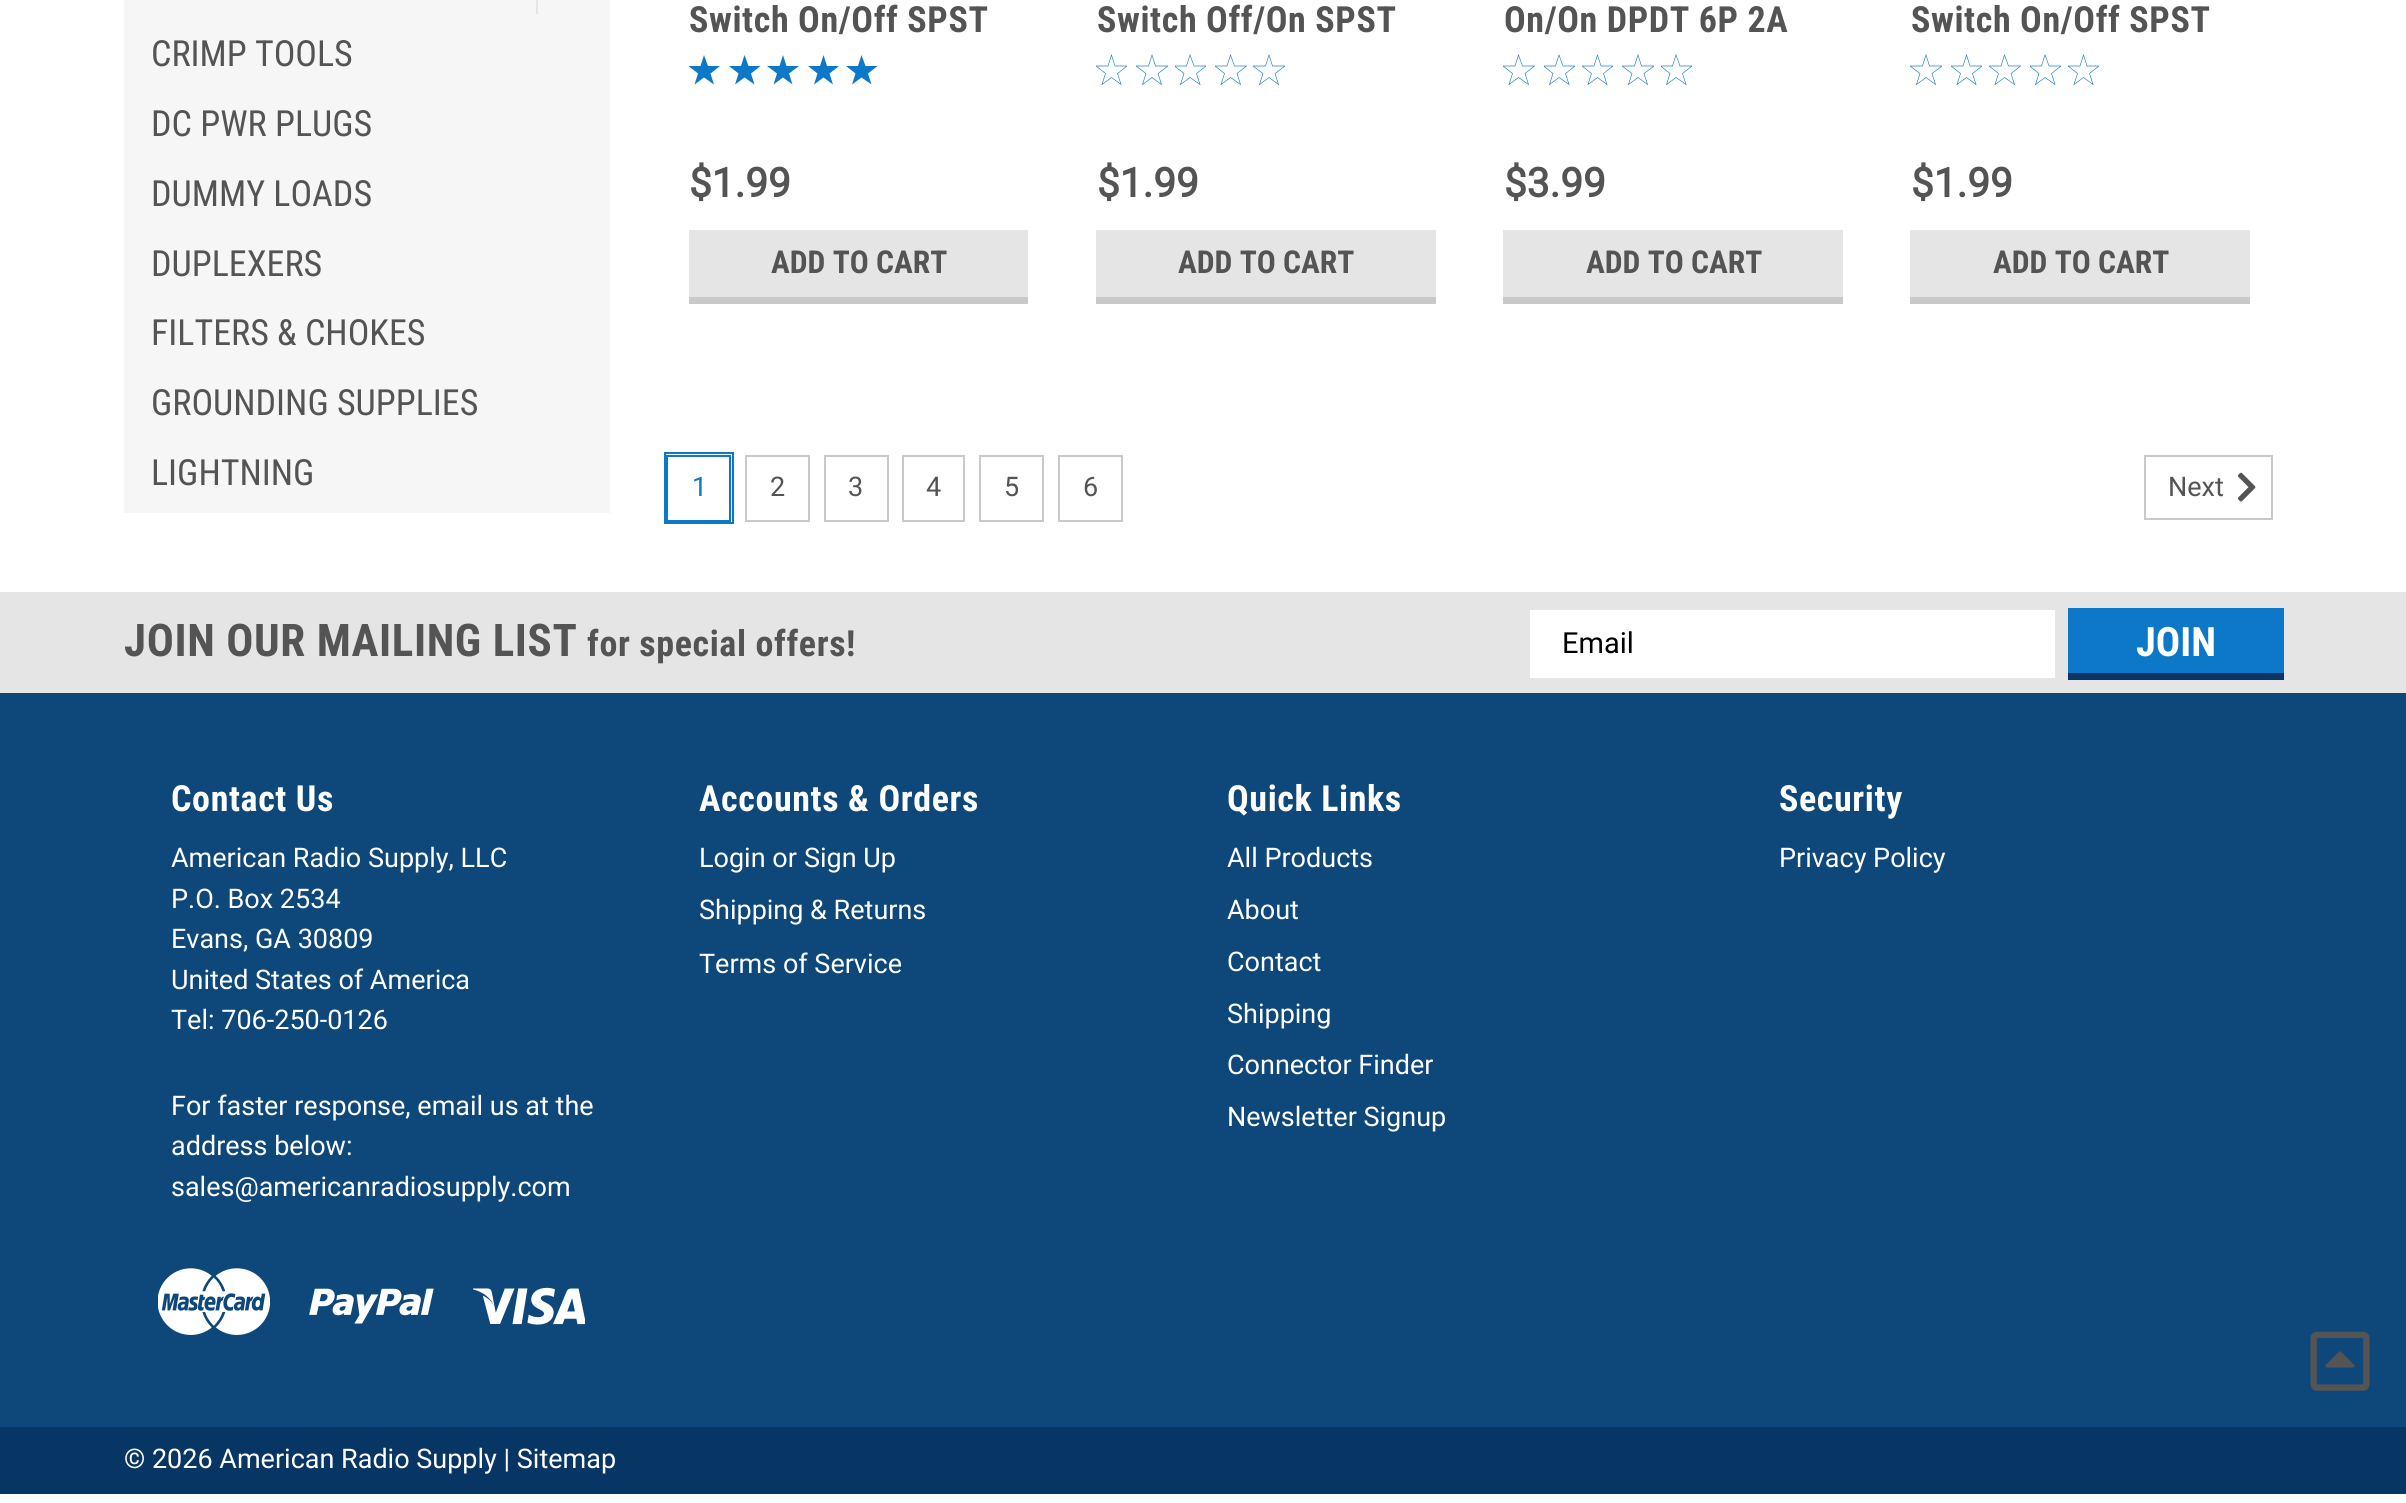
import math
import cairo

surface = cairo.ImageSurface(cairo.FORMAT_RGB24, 2406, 1503)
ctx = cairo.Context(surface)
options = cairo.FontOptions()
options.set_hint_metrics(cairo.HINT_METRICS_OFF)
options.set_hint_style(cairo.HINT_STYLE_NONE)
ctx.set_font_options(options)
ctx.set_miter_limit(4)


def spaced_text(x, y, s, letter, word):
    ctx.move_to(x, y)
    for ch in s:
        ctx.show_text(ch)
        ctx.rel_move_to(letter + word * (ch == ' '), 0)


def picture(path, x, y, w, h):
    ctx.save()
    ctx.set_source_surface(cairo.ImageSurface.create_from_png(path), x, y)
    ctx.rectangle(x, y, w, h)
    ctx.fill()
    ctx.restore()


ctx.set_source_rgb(1, 1, 1)
ctx.paint()
ctx.set_source_rgb(0.961, 0.961, 0.961)
ctx.rectangle(124, 0, 486, 513)
ctx.fill()
ctx.set_source_rgb(0.898, 0.898, 0.898)
ctx.rectangle(536, 0, 2, 14)
ctx.fill()
ctx.select_font_face("Roboto Condensed")
ctx.set_font_size(36)
ctx.set_source_rgb(0.329, 0.329, 0.329)
ctx.move_to(151, 66)
ctx.show_text("CRIMP TOOLS")
ctx.move_to(151, 136)
ctx.show_text("DC PWR PLUGS")
ctx.move_to(151, 206)
ctx.show_text("DUMMY LOADS")
ctx.move_to(151, 276)
ctx.show_text("DUPLEXERS")
ctx.move_to(151, 345)
ctx.show_text("FILTERS & CHOKES")
ctx.move_to(151, 415)
ctx.show_text("GROUNDING SUPPLIES")
ctx.move_to(151, 485)
ctx.show_text("LIGHTNING")
ctx.select_font_face("Roboto Condensed", cairo.FONT_SLANT_NORMAL, cairo.FONT_WEIGHT_BOLD)
spaced_text(689, 32, "Switch On/Off SPST", 0.6, 0)
ctx.set_source_rgb(0.051, 0.467, 0.784)
ctx.new_path()
ctx.move_to(704, 55)
ctx.line_to(708, 66)
ctx.line_to(720, 66)
ctx.line_to(710.5, 73.5)
ctx.line_to(714, 84.5)
ctx.line_to(704, 77.5)
ctx.line_to(694.5, 84.5)
ctx.line_to(698, 73.5)
ctx.line_to(688.5, 66)
ctx.line_to(700.5, 66)
ctx.close_path()
ctx.fill()
ctx.new_path()
ctx.move_to(744.5, 55)
ctx.line_to(748.5, 66)
ctx.line_to(760.5, 66)
ctx.line_to(751, 73.5)
ctx.line_to(754.5, 84.5)
ctx.line_to(744.5, 77.5)
ctx.line_to(735, 84.5)
ctx.line_to(738.5, 73.5)
ctx.line_to(729, 66)
ctx.line_to(741, 66)
ctx.close_path()
ctx.fill()
ctx.new_path()
ctx.move_to(783, 55)
ctx.line_to(786.5, 66)
ctx.line_to(799, 66)
ctx.line_to(789, 73.5)
ctx.line_to(792.5, 84.5)
ctx.line_to(783, 77.5)
ctx.line_to(773.5, 84.5)
ctx.line_to(777, 73.5)
ctx.line_to(767, 66)
ctx.line_to(779.5, 66)
ctx.close_path()
ctx.fill()
ctx.new_path()
ctx.move_to(823.5, 55)
ctx.line_to(827, 66)
ctx.line_to(839, 66)
ctx.line_to(829.5, 73.5)
ctx.line_to(833, 84.5)
ctx.line_to(823.5, 77.5)
ctx.line_to(814, 84.5)
ctx.line_to(817.5, 73.5)
ctx.line_to(808, 66)
ctx.line_to(820, 66)
ctx.close_path()
ctx.fill()
ctx.new_path()
ctx.move_to(861.5, 55)
ctx.line_to(865.5, 66)
ctx.line_to(877.5, 66)
ctx.line_to(868, 73.5)
ctx.line_to(871.5, 84.5)
ctx.line_to(861.5, 77.5)
ctx.line_to(852, 84.5)
ctx.line_to(855.5, 73.5)
ctx.line_to(846, 66)
ctx.line_to(858, 66)
ctx.close_path()
ctx.fill()
ctx.select_font_face("Roboto", cairo.FONT_SLANT_NORMAL, cairo.FONT_WEIGHT_BOLD)
ctx.set_font_size(40.5)
ctx.set_source_rgb(0.329, 0.329, 0.329)
ctx.move_to(689, 197)
ctx.show_text("$1.99")
ctx.set_source_rgb(0.898, 0.898, 0.898)
ctx.rectangle(689, 230, 339, 67)
ctx.fill()
ctx.set_source_rgb(0.788, 0.788, 0.788)
ctx.rectangle(689, 297, 339, 7)
ctx.fill()
ctx.select_font_face("Roboto Condensed", cairo.FONT_SLANT_NORMAL, cairo.FONT_WEIGHT_BOLD)
ctx.set_font_size(31.5)
ctx.set_source_rgb(0.329, 0.329, 0.329)
ctx.move_to(771, 273)
ctx.show_text("ADD TO CART")
ctx.set_font_size(36)
spaced_text(1097, 32, "Switch Off/On SPST", 0.6, 0)
ctx.save()
ctx.rectangle(1096, 54, 31, 32)
ctx.clip()
ctx.new_path()
ctx.move_to(1111.5, 55)
ctx.line_to(1115, 66)
ctx.line_to(1127, 66)
ctx.line_to(1117.5, 73.5)
ctx.line_to(1121, 84.5)
ctx.line_to(1111.5, 77.5)
ctx.line_to(1102, 84.5)
ctx.line_to(1105.5, 73.5)
ctx.line_to(1096, 66)
ctx.line_to(1108, 66)
ctx.close_path()
ctx.set_source_rgb(0.051, 0.467, 0.784)
ctx.set_line_width(0.6)
ctx.stroke()
ctx.restore()
ctx.save()
ctx.rectangle(1136, 54, 32, 32)
ctx.clip()
ctx.new_path()
ctx.move_to(1152, 55)
ctx.line_to(1155.5, 66)
ctx.line_to(1168, 66)
ctx.line_to(1158, 73.5)
ctx.line_to(1161.5, 84.5)
ctx.line_to(1152, 77.5)
ctx.line_to(1142.5, 84.5)
ctx.line_to(1146, 73.5)
ctx.line_to(1136, 66)
ctx.line_to(1148.5, 66)
ctx.close_path()
ctx.set_source_rgb(0.051, 0.467, 0.784)
ctx.set_line_width(0.6)
ctx.stroke()
ctx.restore()
ctx.save()
ctx.rectangle(1175, 54, 31, 32)
ctx.clip()
ctx.new_path()
ctx.move_to(1190, 55)
ctx.line_to(1194, 66)
ctx.line_to(1206, 66)
ctx.line_to(1196.5, 73.5)
ctx.line_to(1200, 84.5)
ctx.line_to(1190, 77.5)
ctx.line_to(1180.5, 84.5)
ctx.line_to(1184, 73.5)
ctx.line_to(1174.5, 66)
ctx.line_to(1186.5, 66)
ctx.close_path()
ctx.set_source_rgb(0.051, 0.467, 0.784)
ctx.set_line_width(0.6)
ctx.stroke()
ctx.restore()
ctx.save()
ctx.rectangle(1215, 54, 32, 32)
ctx.clip()
ctx.new_path()
ctx.move_to(1230.5, 55)
ctx.line_to(1234.5, 66)
ctx.line_to(1246.5, 66)
ctx.line_to(1237, 73.5)
ctx.line_to(1240.5, 84.5)
ctx.line_to(1230.5, 77.5)
ctx.line_to(1221, 84.5)
ctx.line_to(1224.5, 73.5)
ctx.line_to(1215, 66)
ctx.line_to(1227, 66)
ctx.close_path()
ctx.set_source_rgb(0.051, 0.467, 0.784)
ctx.set_line_width(0.6)
ctx.stroke()
ctx.restore()
ctx.save()
ctx.rectangle(1253, 54, 32, 32)
ctx.clip()
ctx.new_path()
ctx.move_to(1269, 55)
ctx.line_to(1272.5, 66)
ctx.line_to(1285, 66)
ctx.line_to(1275, 73.5)
ctx.line_to(1278.5, 84.5)
ctx.line_to(1269, 77.5)
ctx.line_to(1259.5, 84.5)
ctx.line_to(1263, 73.5)
ctx.line_to(1253, 66)
ctx.line_to(1265.5, 66)
ctx.close_path()
ctx.set_source_rgb(0.051, 0.467, 0.784)
ctx.set_line_width(0.6)
ctx.stroke()
ctx.restore()
ctx.select_font_face("Roboto", cairo.FONT_SLANT_NORMAL, cairo.FONT_WEIGHT_BOLD)
ctx.set_font_size(40.5)
ctx.move_to(1097, 197)
ctx.show_text("$1.99")
ctx.set_source_rgb(0.898, 0.898, 0.898)
ctx.rectangle(1096, 230, 340, 67)
ctx.fill()
ctx.set_source_rgb(0.788, 0.788, 0.788)
ctx.rectangle(1096, 297, 340, 7)
ctx.fill()
ctx.select_font_face("Roboto Condensed", cairo.FONT_SLANT_NORMAL, cairo.FONT_WEIGHT_BOLD)
ctx.set_font_size(31.5)
ctx.set_source_rgb(0.329, 0.329, 0.329)
ctx.move_to(1178, 273)
ctx.show_text("ADD TO CART")
ctx.set_font_size(36)
spaced_text(1504, 32, "On/On DPDT 6P 2A", 0.6, 0)
ctx.save()
ctx.rectangle(1503, 54, 32, 32)
ctx.clip()
ctx.new_path()
ctx.move_to(1518.5, 55)
ctx.line_to(1522.5, 66)
ctx.line_to(1534.5, 66)
ctx.line_to(1525, 73.5)
ctx.line_to(1528.5, 84.5)
ctx.line_to(1518.5, 77.5)
ctx.line_to(1509, 84.5)
ctx.line_to(1512.5, 73.5)
ctx.line_to(1503, 66)
ctx.line_to(1515, 66)
ctx.close_path()
ctx.set_source_rgb(0.051, 0.467, 0.784)
ctx.set_line_width(0.6)
ctx.stroke()
ctx.restore()
ctx.save()
ctx.rectangle(1544, 54, 31, 32)
ctx.clip()
ctx.new_path()
ctx.move_to(1559, 55)
ctx.line_to(1563, 66)
ctx.line_to(1575, 66)
ctx.line_to(1565.5, 73.5)
ctx.line_to(1569, 84.5)
ctx.line_to(1559, 77.5)
ctx.line_to(1549.5, 84.5)
ctx.line_to(1553, 73.5)
ctx.line_to(1543.5, 66)
ctx.line_to(1555.5, 66)
ctx.close_path()
ctx.set_source_rgb(0.051, 0.467, 0.784)
ctx.set_line_width(0.6)
ctx.stroke()
ctx.restore()
ctx.save()
ctx.rectangle(1582, 54, 31, 32)
ctx.clip()
ctx.new_path()
ctx.move_to(1597.5, 55)
ctx.line_to(1601, 66)
ctx.line_to(1613, 66)
ctx.line_to(1603.5, 73.5)
ctx.line_to(1607, 84.5)
ctx.line_to(1597.5, 77.5)
ctx.line_to(1588, 84.5)
ctx.line_to(1591.5, 73.5)
ctx.line_to(1582, 66)
ctx.line_to(1594, 66)
ctx.close_path()
ctx.set_source_rgb(0.051, 0.467, 0.784)
ctx.set_line_width(0.6)
ctx.stroke()
ctx.restore()
ctx.save()
ctx.rectangle(1622, 54, 32, 32)
ctx.clip()
ctx.new_path()
ctx.move_to(1638, 55)
ctx.line_to(1641.5, 66)
ctx.line_to(1654, 66)
ctx.line_to(1644, 73.5)
ctx.line_to(1647.5, 84.5)
ctx.line_to(1638, 77.5)
ctx.line_to(1628.5, 84.5)
ctx.line_to(1632, 73.5)
ctx.line_to(1622, 66)
ctx.line_to(1634.5, 66)
ctx.close_path()
ctx.set_source_rgb(0.051, 0.467, 0.784)
ctx.set_line_width(0.6)
ctx.stroke()
ctx.restore()
ctx.save()
ctx.rectangle(1661, 54, 31, 32)
ctx.clip()
ctx.new_path()
ctx.move_to(1676, 55)
ctx.line_to(1680, 66)
ctx.line_to(1692, 66)
ctx.line_to(1682.5, 73.5)
ctx.line_to(1686, 84.5)
ctx.line_to(1676, 77.5)
ctx.line_to(1666.5, 84.5)
ctx.line_to(1670, 73.5)
ctx.line_to(1660.5, 66)
ctx.line_to(1672.5, 66)
ctx.close_path()
ctx.set_source_rgb(0.051, 0.467, 0.784)
ctx.set_line_width(0.6)
ctx.stroke()
ctx.restore()
ctx.select_font_face("Roboto", cairo.FONT_SLANT_NORMAL, cairo.FONT_WEIGHT_BOLD)
ctx.set_font_size(40.5)
ctx.move_to(1504, 197)
ctx.show_text("$3.99")
ctx.set_source_rgb(0.898, 0.898, 0.898)
ctx.rectangle(1503, 230, 340, 67)
ctx.fill()
ctx.set_source_rgb(0.788, 0.788, 0.788)
ctx.rectangle(1503, 297, 340, 7)
ctx.fill()
ctx.select_font_face("Roboto Condensed", cairo.FONT_SLANT_NORMAL, cairo.FONT_WEIGHT_BOLD)
ctx.set_font_size(31.5)
ctx.set_source_rgb(0.329, 0.329, 0.329)
ctx.move_to(1586, 273)
ctx.show_text("ADD TO CART")
ctx.set_font_size(36)
spaced_text(1911, 32, "Switch On/Off SPST", 0.6, 0)
ctx.save()
ctx.rectangle(1910, 54, 32, 32)
ctx.clip()
ctx.new_path()
ctx.move_to(1926, 55)
ctx.line_to(1929.5, 66)
ctx.line_to(1942, 66)
ctx.line_to(1932, 73.5)
ctx.line_to(1935.5, 84.5)
ctx.line_to(1926, 77.5)
ctx.line_to(1916.5, 84.5)
ctx.line_to(1920, 73.5)
ctx.line_to(1910, 66)
ctx.line_to(1922.5, 66)
ctx.close_path()
ctx.set_source_rgb(0.051, 0.467, 0.784)
ctx.set_line_width(0.6)
ctx.stroke()
ctx.restore()
ctx.save()
ctx.rectangle(1951, 54, 31, 32)
ctx.clip()
ctx.new_path()
ctx.move_to(1966.5, 55)
ctx.line_to(1970, 66)
ctx.line_to(1982, 66)
ctx.line_to(1972.5, 73.5)
ctx.line_to(1976, 84.5)
ctx.line_to(1966.5, 77.5)
ctx.line_to(1957, 84.5)
ctx.line_to(1960.5, 73.5)
ctx.line_to(1951, 66)
ctx.line_to(1963, 66)
ctx.close_path()
ctx.set_source_rgb(0.051, 0.467, 0.784)
ctx.set_line_width(0.6)
ctx.stroke()
ctx.restore()
ctx.save()
ctx.rectangle(1989, 54, 32, 32)
ctx.clip()
ctx.new_path()
ctx.move_to(2004.5, 55)
ctx.line_to(2008.5, 66)
ctx.line_to(2020.5, 66)
ctx.line_to(2011, 73.5)
ctx.line_to(2014.5, 84.5)
ctx.line_to(2004.5, 77.5)
ctx.line_to(1995, 84.5)
ctx.line_to(1998.5, 73.5)
ctx.line_to(1989, 66)
ctx.line_to(2001, 66)
ctx.close_path()
ctx.set_source_rgb(0.051, 0.467, 0.784)
ctx.set_line_width(0.6)
ctx.stroke()
ctx.restore()
ctx.save()
ctx.rectangle(2030, 54, 31, 32)
ctx.clip()
ctx.new_path()
ctx.move_to(2045, 55)
ctx.line_to(2049, 66)
ctx.line_to(2061, 66)
ctx.line_to(2051.5, 73.5)
ctx.line_to(2055, 84.5)
ctx.line_to(2045, 77.5)
ctx.line_to(2035.5, 84.5)
ctx.line_to(2039, 73.5)
ctx.line_to(2029.5, 66)
ctx.line_to(2041.5, 66)
ctx.close_path()
ctx.set_source_rgb(0.051, 0.467, 0.784)
ctx.set_line_width(0.6)
ctx.stroke()
ctx.restore()
ctx.save()
ctx.rectangle(2068, 54, 31, 32)
ctx.clip()
ctx.new_path()
ctx.move_to(2083.5, 55)
ctx.line_to(2087, 66)
ctx.line_to(2099, 66)
ctx.line_to(2089.5, 73.5)
ctx.line_to(2093, 84.5)
ctx.line_to(2083.5, 77.5)
ctx.line_to(2074, 84.5)
ctx.line_to(2077.5, 73.5)
ctx.line_to(2068, 66)
ctx.line_to(2080, 66)
ctx.close_path()
ctx.set_source_rgb(0.051, 0.467, 0.784)
ctx.set_line_width(0.6)
ctx.stroke()
ctx.restore()
ctx.select_font_face("Roboto", cairo.FONT_SLANT_NORMAL, cairo.FONT_WEIGHT_BOLD)
ctx.set_font_size(40.5)
ctx.move_to(1911, 197)
ctx.show_text("$1.99")
ctx.set_source_rgb(0.898, 0.898, 0.898)
ctx.rectangle(1910, 230, 340, 67)
ctx.fill()
ctx.set_source_rgb(0.788, 0.788, 0.788)
ctx.rectangle(1910, 297, 340, 7)
ctx.fill()
ctx.select_font_face("Roboto Condensed", cairo.FONT_SLANT_NORMAL, cairo.FONT_WEIGHT_BOLD)
ctx.set_font_size(31.5)
ctx.set_source_rgb(0.329, 0.329, 0.329)
ctx.move_to(1993, 273)
ctx.show_text("ADD TO CART")
ctx.rectangle(665, 453, 68, 70)
ctx.set_source_rgb(0.051, 0.467, 0.784)
ctx.stroke()
ctx.rectangle(667, 456, 63, 65)
ctx.stroke()
ctx.select_font_face("Roboto")
ctx.set_font_size(27)
ctx.move_to(692, 496)
ctx.show_text("1")
ctx.rectangle(746, 456, 63, 65)
ctx.set_source_rgb(0.788, 0.788, 0.788)
ctx.stroke()
ctx.set_source_rgb(0.329, 0.329, 0.329)
ctx.move_to(770, 496)
ctx.show_text("2")
ctx.rectangle(825, 456, 63, 65)
ctx.set_source_rgb(0.788, 0.788, 0.788)
ctx.stroke()
ctx.set_source_rgb(0.329, 0.329, 0.329)
ctx.move_to(848, 496)
ctx.show_text("3")
ctx.rectangle(903, 456, 61, 65)
ctx.set_source_rgb(0.788, 0.788, 0.788)
ctx.stroke()
ctx.set_source_rgb(0.329, 0.329, 0.329)
ctx.move_to(926, 496)
ctx.show_text("4")
ctx.rectangle(980, 456, 63, 65)
ctx.set_source_rgb(0.788, 0.788, 0.788)
ctx.stroke()
ctx.set_source_rgb(0.329, 0.329, 0.329)
ctx.move_to(1004, 496)
ctx.show_text("5")
ctx.rectangle(1059, 456, 63, 65)
ctx.set_source_rgb(0.788, 0.788, 0.788)
ctx.stroke()
ctx.set_source_rgb(0.329, 0.329, 0.329)
ctx.move_to(1083, 496)
ctx.show_text("6")
ctx.rectangle(2145, 456, 127, 63)
ctx.set_source_rgb(0.788, 0.788, 0.788)
ctx.stroke()
ctx.set_source_rgb(0.329, 0.329, 0.329)
ctx.move_to(2168, 496)
ctx.show_text("Next")
picture("img1.png", 2237, 472, 19, 30)
ctx.set_source_rgb(0.055, 0.282, 0.478)
ctx.rectangle(0, 693, 2406, 734)
ctx.fill()
ctx.set_source_rgb(0.898, 0.898, 0.898)
ctx.rectangle(0, 592, 2406, 101)
ctx.fill()
ctx.select_font_face("Roboto Condensed", cairo.FONT_SLANT_NORMAL, cairo.FONT_WEIGHT_BOLD)
ctx.set_font_size(45)
ctx.set_source_rgb(0.329, 0.329, 0.329)
spaced_text(124, 656, "JOIN OUR MAILING LIST", 0.6, 0)
ctx.set_font_size(36)
spaced_text(587, 656, "for special offers!", 0.6, 0)
ctx.set_source_rgb(1, 1, 1)
ctx.rectangle(1530, 610, 525, 68)
ctx.fill()
ctx.select_font_face("Roboto")
ctx.set_font_size(29)
ctx.set_source_rgb(0, 0, 0)
ctx.move_to(1562, 653)
ctx.show_text("Email")
ctx.set_source_rgb(0.051, 0.467, 0.784)
ctx.rectangle(2068, 608, 216, 65)
ctx.fill()
ctx.set_source_rgb(0.035, 0.212, 0.392)
ctx.rectangle(2068, 673, 216, 7)
ctx.fill()
ctx.select_font_face("Roboto Condensed", cairo.FONT_SLANT_NORMAL, cairo.FONT_WEIGHT_BOLD)
ctx.set_font_size(40.5)
ctx.set_source_rgb(1, 1, 1)
ctx.move_to(2136, 656)
ctx.show_text("JOIN")
ctx.set_font_size(36)
spaced_text(171, 811, "Contact Us", 0.6, 0)
ctx.select_font_face("Roboto")
ctx.set_font_size(27)
ctx.move_to(171, 867)
ctx.show_text("American Radio Supply, LLC")
ctx.move_to(171, 908)
ctx.show_text("P.O. Box 2534")
ctx.move_to(171, 948)
ctx.show_text("Evans, GA 30809")
ctx.move_to(171, 989)
ctx.show_text("United States of America")
ctx.move_to(171, 1029)
ctx.show_text("Tel: 706-250-0126")
ctx.move_to(171, 1115)
ctx.show_text("For faster response, email us at the")
ctx.move_to(171, 1155)
ctx.show_text("address below:")
ctx.move_to(171, 1196)
ctx.show_text("sales@americanradiosupply.com")
ctx.select_font_face("Roboto Condensed", cairo.FONT_SLANT_NORMAL, cairo.FONT_WEIGHT_BOLD)
ctx.set_font_size(36)
spaced_text(699, 811, "Accounts & Orders", 0.6, 0)
ctx.select_font_face("Roboto")
ctx.set_font_size(27)
ctx.move_to(699, 867)
ctx.show_text("Login or")
ctx.move_to(804, 867)
ctx.show_text("Sign Up")
ctx.move_to(699, 919)
ctx.show_text("Shipping & Returns")
ctx.move_to(699, 973)
ctx.show_text("Terms of Service")
ctx.select_font_face("Roboto Condensed", cairo.FONT_SLANT_NORMAL, cairo.FONT_WEIGHT_BOLD)
ctx.set_font_size(36)
spaced_text(1227, 811, "Quick Links", 0.6, 0)
ctx.select_font_face("Roboto")
ctx.set_font_size(27)
ctx.move_to(1227, 867)
ctx.show_text("All Products")
ctx.move_to(1227, 919)
ctx.show_text("About")
ctx.move_to(1227, 971)
ctx.show_text("Contact")
ctx.move_to(1227, 1023)
ctx.show_text("Shipping")
ctx.move_to(1227, 1074)
ctx.show_text("Connector Finder")
ctx.move_to(1227, 1126)
ctx.show_text("Newsletter Signup")
ctx.select_font_face("Roboto Condensed", cairo.FONT_SLANT_NORMAL, cairo.FONT_WEIGHT_BOLD)
ctx.set_font_size(36)
spaced_text(1779, 811, "Security", 0.6, 0)
ctx.select_font_face("Roboto")
ctx.set_font_size(27)
ctx.move_to(1779, 867)
ctx.show_text("Privacy Policy")
picture("img2.png", 158, 1268, 112, 67)
picture("img3.png", 309, 1288, 125, 36)
picture("img4.png", 473, 1287, 112, 38)
picture("img5.png", 2310, 1331, 60, 60)
ctx.set_source_rgb(0.035, 0.212, 0.392)
ctx.rectangle(0, 1427, 2406, 67)
ctx.fill()
ctx.set_source_rgb(1, 1, 1)
ctx.move_to(124, 1468)
ctx.show_text("© 2026 American Radio Supply | Sitemap")
surface.write_to_png("page.png")
